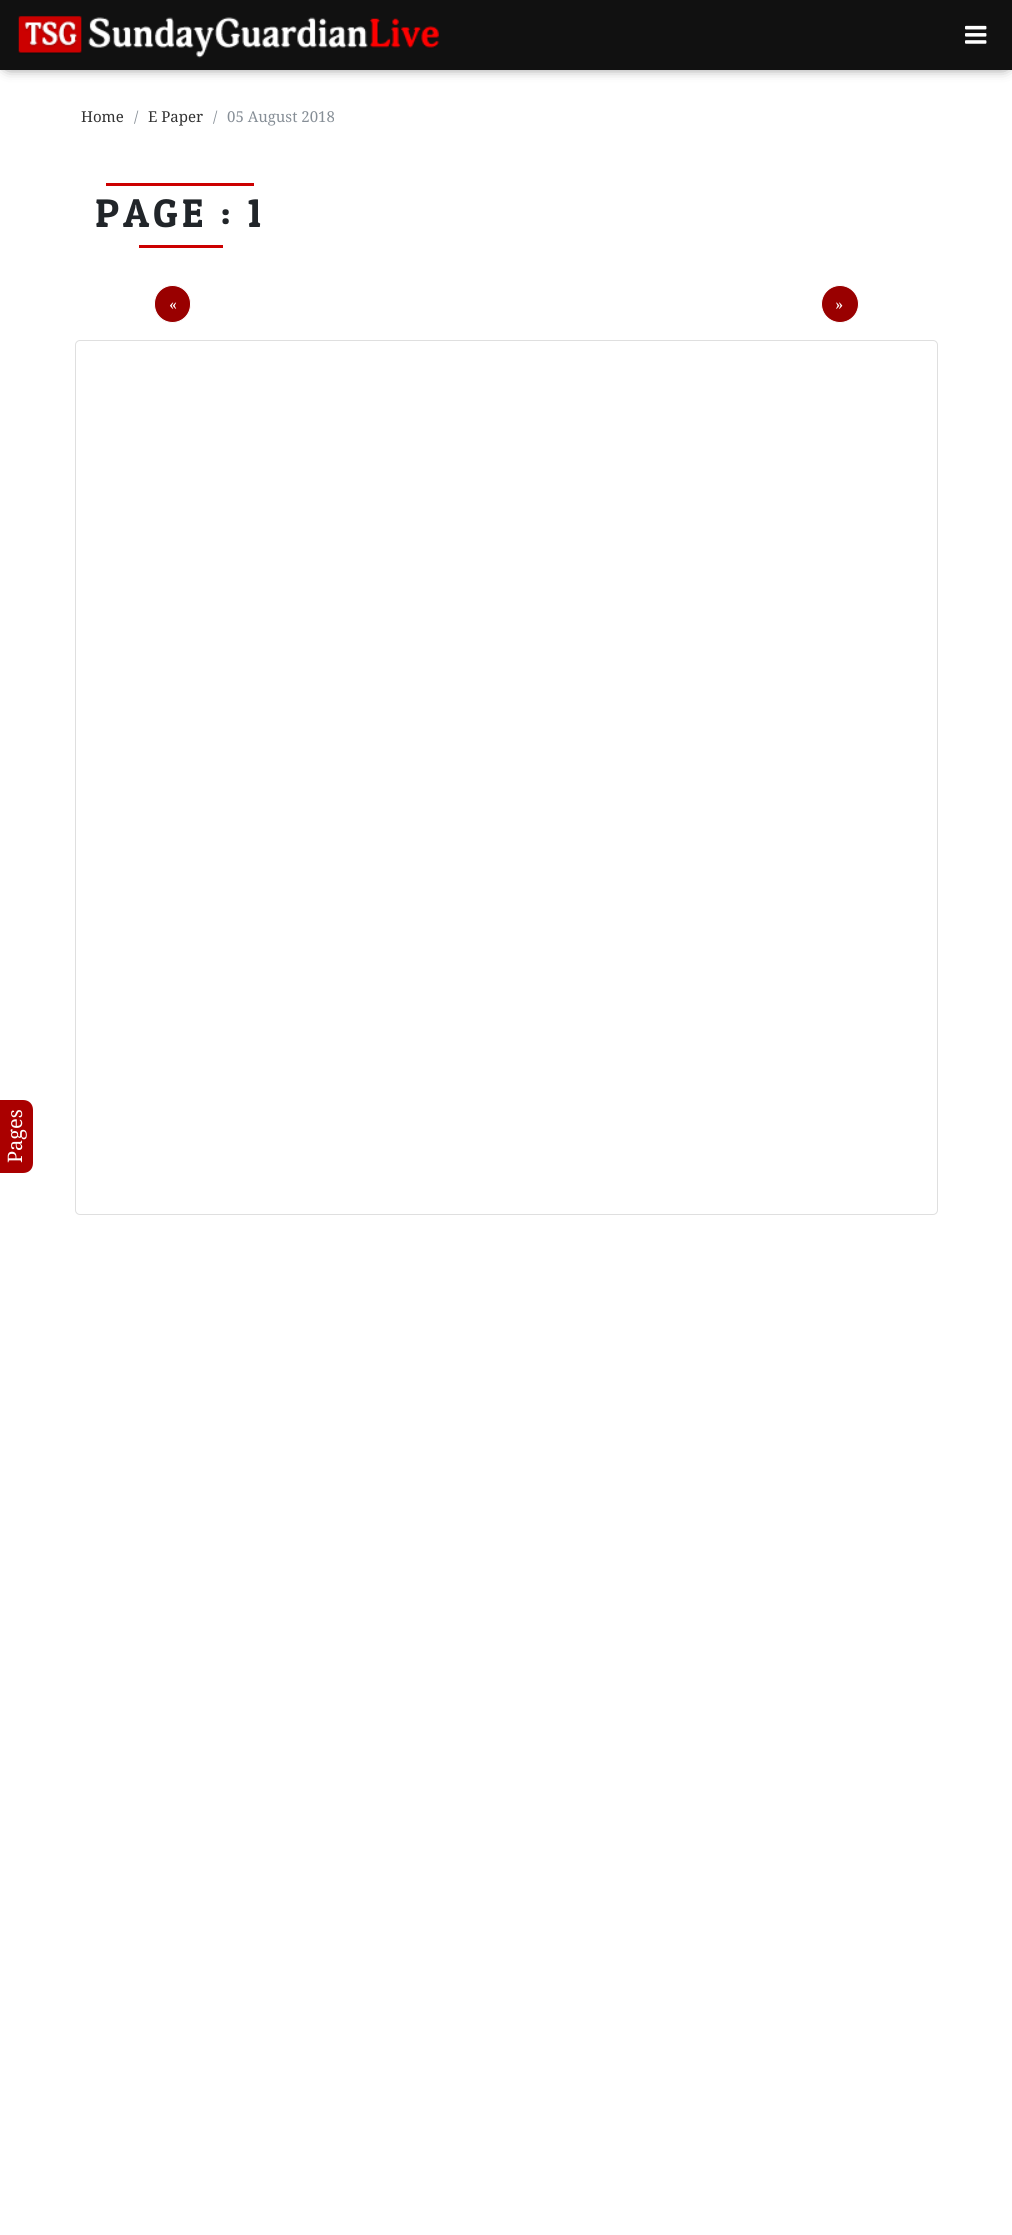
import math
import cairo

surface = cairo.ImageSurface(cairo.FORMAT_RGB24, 1012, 2235)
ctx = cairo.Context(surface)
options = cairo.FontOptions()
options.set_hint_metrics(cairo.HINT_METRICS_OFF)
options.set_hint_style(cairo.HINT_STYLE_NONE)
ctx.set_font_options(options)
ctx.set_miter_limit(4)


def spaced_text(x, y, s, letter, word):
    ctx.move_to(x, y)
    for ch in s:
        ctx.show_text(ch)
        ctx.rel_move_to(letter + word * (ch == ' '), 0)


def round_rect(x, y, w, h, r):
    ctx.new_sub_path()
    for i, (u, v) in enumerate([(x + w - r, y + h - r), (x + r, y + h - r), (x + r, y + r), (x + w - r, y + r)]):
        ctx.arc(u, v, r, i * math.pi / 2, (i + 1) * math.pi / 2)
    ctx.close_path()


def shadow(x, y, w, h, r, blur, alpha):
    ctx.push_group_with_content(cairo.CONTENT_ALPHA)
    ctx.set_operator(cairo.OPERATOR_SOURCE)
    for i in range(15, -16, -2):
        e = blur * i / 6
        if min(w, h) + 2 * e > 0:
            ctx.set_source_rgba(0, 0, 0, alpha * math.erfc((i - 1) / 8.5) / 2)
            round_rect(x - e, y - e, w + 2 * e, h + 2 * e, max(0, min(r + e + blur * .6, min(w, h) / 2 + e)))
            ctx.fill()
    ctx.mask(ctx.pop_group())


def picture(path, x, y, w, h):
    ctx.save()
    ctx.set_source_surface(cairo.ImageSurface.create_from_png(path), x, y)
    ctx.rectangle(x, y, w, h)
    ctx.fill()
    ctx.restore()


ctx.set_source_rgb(1, 1, 1)
ctx.paint()
ctx.set_source_rgb(0, 0, 0)
shadow(8, 9, 997, 55, 0, 7.5, 1)
ctx.set_source_rgb(0.067, 0.067, 0.067)
ctx.rectangle(0, 0, 1012, 70)
ctx.fill()
picture("img1.png", 18, 16, 421, 42)
picture("img2.png", 965, 25, 22, 19)
ctx.select_font_face("Noto Serif")
ctx.set_font_size(15)
ctx.set_source_rgb(0.2, 0.2, 0.2)
ctx.move_to(81, 122)
ctx.show_text("Home")
ctx.set_source_rgb(0.525, 0.557, 0.588)
ctx.move_to(134, 122)
ctx.show_text("/")
ctx.set_source_rgb(0.2, 0.2, 0.2)
ctx.move_to(148, 122)
ctx.show_text("E Paper")
ctx.set_source_rgb(0.525, 0.557, 0.588)
ctx.move_to(213, 122)
ctx.show_text("/")
ctx.move_to(227, 122)
ctx.show_text("05 August 2018")
ctx.set_source_rgb(0.8, 0, 0)
ctx.rectangle(106, 183, 148, 3)
ctx.fill()
ctx.select_font_face("Patua One")
ctx.set_font_size(40)
ctx.set_source_rgb(0.129, 0.145, 0.161)
spaced_text(95, 227, "PAGE : 1", 4, 0)
ctx.set_source_rgb(0.8, 0, 0)
ctx.rectangle(139, 245, 84, 3)
ctx.fill()
ctx.set_source_rgb(0.6, 0, 0)
round_rect(154.5, 285.5, 36, 37, 18)
ctx.fill_preserve()
ctx.set_source_rgb(1, 1, 1)
ctx.set_line_width(1)
ctx.stroke()
ctx.select_font_face("Noto Serif")
ctx.set_font_size(16)
ctx.move_to(169, 310)
ctx.show_text("«")
ctx.set_source_rgb(0.6, 0, 0)
ctx.new_path()
ctx.arc(840, 304, 18.5, 0, 2 * math.pi)
ctx.fill_preserve()
ctx.set_source_rgb(1, 1, 1)
ctx.stroke()
ctx.move_to(835, 310)
ctx.show_text("»")
ctx.set_source_rgb(0.667, 0, 0)
ctx.new_path()
ctx.move_to(-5, 1173)
ctx.line_to(-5, 1100)
ctx.line_to(23, 1100)
ctx.curve_to(29, 1100, 33, 1104, 33, 1110)
ctx.line_to(33, 1163)
ctx.curve_to(33, 1169, 29, 1173, 23, 1173)
ctx.close_path()
ctx.fill()
ctx.set_font_size(20)
ctx.set_source_rgb(1, 1, 1)
ctx.save()
ctx.translate(22, 1163)
ctx.rotate(-90 * math.pi / 180)
ctx.move_to(0, 0)
ctx.show_text("Pages")
ctx.restore()
round_rect(75.5, 340.5, 862, 874, 4.5)
ctx.set_source_rgb(0.875, 0.875, 0.875)
ctx.stroke()
surface.write_to_png("page.png")
